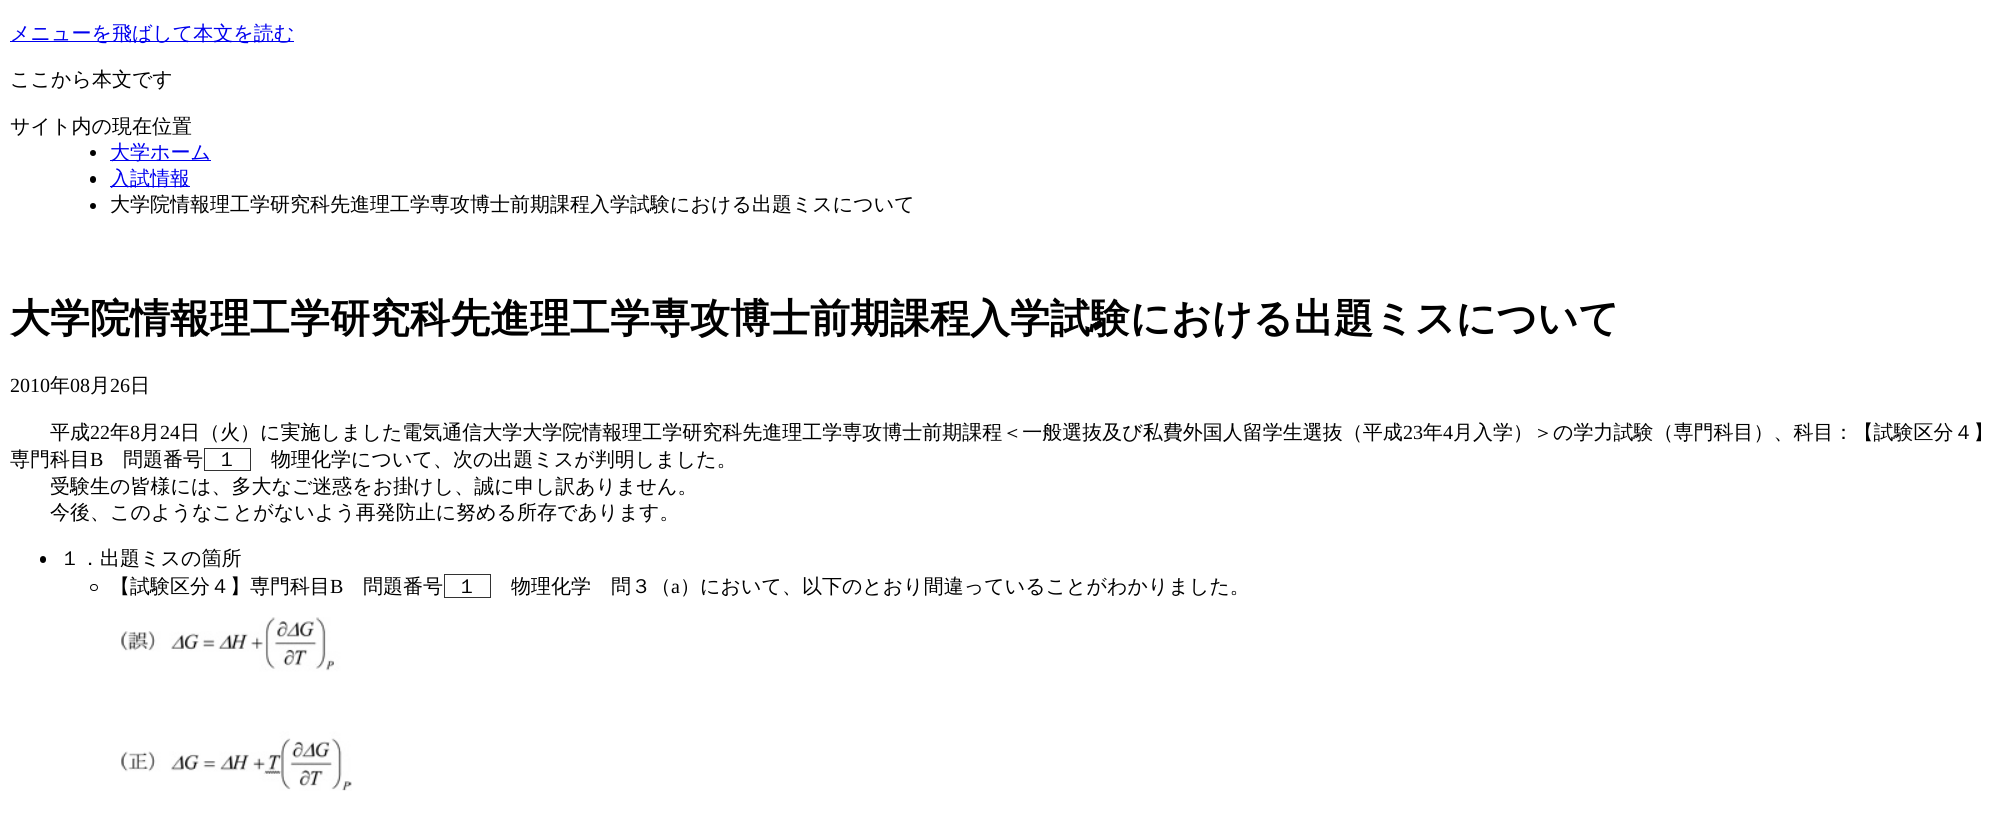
import math
import cairo

surface = cairo.ImageSurface(cairo.FORMAT_RGB24, 2012, 839)
ctx = cairo.Context(surface)
options = cairo.FontOptions()
options.set_hint_metrics(cairo.HINT_METRICS_OFF)
options.set_hint_style(cairo.HINT_STYLE_NONE)
ctx.set_font_options(options)
ctx.set_miter_limit(4)


def round_rect(x, y, w, h, r):
    ctx.new_sub_path()
    for i, (u, v) in enumerate([(x + w - r, y + h - r), (x + r, y + h - r), (x + r, y + r), (x + w - r, y + r)]):
        ctx.arc(u, v, r, i * math.pi / 2, (i + 1) * math.pi / 2)
    ctx.close_path()


def picture(path, x, y, w, h):
    ctx.save()
    ctx.set_source_surface(cairo.ImageSurface.create_from_png(path), x, y)
    ctx.rectangle(x, y, w, h)
    ctx.fill()
    ctx.restore()


ctx.set_source_rgb(1, 1, 1)
ctx.paint()
ctx.set_source_rgb(0, 0, 0.933)
ctx.rectangle(10, 41, 284, 1)
ctx.fill()
ctx.select_font_face("WenQuanYi Zen Hei Medium")
ctx.set_font_size(20)
ctx.move_to(10, 40)
ctx.show_text("メニューを飛ばして本文を読む")
ctx.set_source_rgb(0, 0, 0)
ctx.move_to(10, 86)
ctx.show_text("ここから本文です")
ctx.move_to(10, 133)
ctx.show_text("サイト内の現在位置")
ctx.new_path()
ctx.arc(93, 153, 3, 0, 2 * math.pi)
ctx.fill()
ctx.set_source_rgb(0, 0, 0.933)
ctx.rectangle(110, 160, 101, 1)
ctx.fill()
ctx.move_to(110, 159)
ctx.show_text("大学ホーム")
ctx.set_source_rgb(0, 0, 0)
round_rect(90, 176, 6, 7, 3)
ctx.fill()
ctx.set_source_rgb(0, 0, 0.933)
ctx.rectangle(110, 186, 80, 1)
ctx.fill()
ctx.move_to(110, 185)
ctx.show_text("入試情報")
ctx.set_source_rgb(0, 0, 0)
ctx.new_path()
ctx.arc(93, 206, 3, 0, 2 * math.pi)
ctx.fill()
ctx.move_to(110, 211)
ctx.show_text("大学院情報理工学研究科先進理工学専攻博士前期課程入学試験における出題ミスについて")
ctx.select_font_face("WenQuanYi Zen Hei", cairo.FONT_SLANT_NORMAL, cairo.FONT_WEIGHT_BOLD)
ctx.set_font_size(40)
ctx.move_to(10, 332)
ctx.show_text("大学院情報理工学研究科先進理工学専攻博士前期課程入学試験における出題ミスについて")
ctx.select_font_face("Liberation Serif")
ctx.set_font_size(20)
ctx.move_to(10, 392)
ctx.show_text("2010")
ctx.select_font_face("WenQuanYi Zen Hei Medium")
ctx.move_to(50, 392)
ctx.show_text("年")
ctx.select_font_face("Liberation Serif")
ctx.move_to(70, 392)
ctx.show_text("08")
ctx.select_font_face("WenQuanYi Zen Hei Medium")
ctx.move_to(90, 392)
ctx.show_text("月")
ctx.select_font_face("Liberation Serif")
ctx.move_to(110, 392)
ctx.show_text("26")
ctx.select_font_face("WenQuanYi Zen Hei Medium")
ctx.move_to(130, 392)
ctx.show_text("日")
ctx.move_to(50, 439)
ctx.show_text("平成")
ctx.select_font_face("Liberation Serif")
ctx.move_to(90, 439)
ctx.show_text("22")
ctx.select_font_face("WenQuanYi Zen Hei Medium")
ctx.move_to(110, 439)
ctx.show_text("年")
ctx.select_font_face("Liberation Serif")
ctx.move_to(130, 439)
ctx.show_text("8")
ctx.select_font_face("WenQuanYi Zen Hei Medium")
ctx.move_to(140, 439)
ctx.show_text("月")
ctx.select_font_face("Liberation Serif")
ctx.move_to(160, 439)
ctx.show_text("24")
ctx.select_font_face("WenQuanYi Zen Hei Medium")
ctx.move_to(180, 439)
ctx.show_text("日（火）に実施しました電気通信大学大学院情報理工学研究科先進理工学専攻博士前期課程＜一般選抜及び私費外国人留学生選抜（平成")
ctx.select_font_face("Liberation Serif")
ctx.move_to(1403, 439)
ctx.show_text("23")
ctx.select_font_face("WenQuanYi Zen Hei Medium")
ctx.move_to(1423, 439)
ctx.show_text("年")
ctx.select_font_face("Liberation Serif")
ctx.move_to(1443, 439)
ctx.show_text("4")
ctx.select_font_face("WenQuanYi Zen Hei Medium")
ctx.move_to(1453, 439)
ctx.show_text("月入学）＞の学力試験（専門科目）、科目：【試験区分４】")
ctx.move_to(10, 466)
ctx.show_text("専門科目")
ctx.select_font_face("Liberation Serif")
ctx.move_to(90, 466)
ctx.show_text("B")
ctx.select_font_face("WenQuanYi Zen Hei Medium")
ctx.move_to(123, 466)
ctx.show_text("問題番号")
ctx.rectangle(204.5, 448.5, 46, 22)
ctx.set_source_rgb(0.2, 0.2, 0.2)
ctx.set_line_width(1)
ctx.stroke()
ctx.set_source_rgb(0, 0, 0)
ctx.move_to(217, 466)
ctx.show_text("１")
ctx.move_to(271, 466)
ctx.show_text("物理化学について、次の出題ミスが判明しました。")
ctx.move_to(50, 493)
ctx.show_text("受験生の皆様には、多大なご迷惑をお掛けし、誠に申し訳ありません。")
ctx.move_to(50, 519)
ctx.show_text("今後、このようなことがないよう再発防止に努める所存であります。")
round_rect(40, 556, 6, 7, 3)
ctx.fill()
ctx.move_to(60, 565)
ctx.show_text("１．出題ミスの箇所")
round_rect(90.5, 584.5, 7, 6, 3)
ctx.stroke()
ctx.move_to(110, 593)
ctx.show_text("【試験区分４】専門科目")
ctx.select_font_face("Liberation Serif")
ctx.move_to(330, 593)
ctx.show_text("B")
ctx.select_font_face("WenQuanYi Zen Hei Medium")
ctx.move_to(363, 593)
ctx.show_text("問題番号")
ctx.rectangle(444.5, 574.5, 46, 23)
ctx.set_source_rgb(0.2, 0.2, 0.2)
ctx.stroke()
ctx.set_source_rgb(0, 0, 0)
ctx.move_to(457, 593)
ctx.show_text("１")
ctx.move_to(511, 593)
ctx.show_text("物理化学　問３（")
ctx.select_font_face("Liberation Serif")
ctx.move_to(671, 593)
ctx.show_text("a")
ctx.select_font_face("WenQuanYi Zen Hei Medium")
ctx.move_to(680, 593)
ctx.show_text("）において、以下のとおり間違っていることがわかりました。")
picture("img1.png", 121, 617, 231, 174)
surface.write_to_png("page.png")
